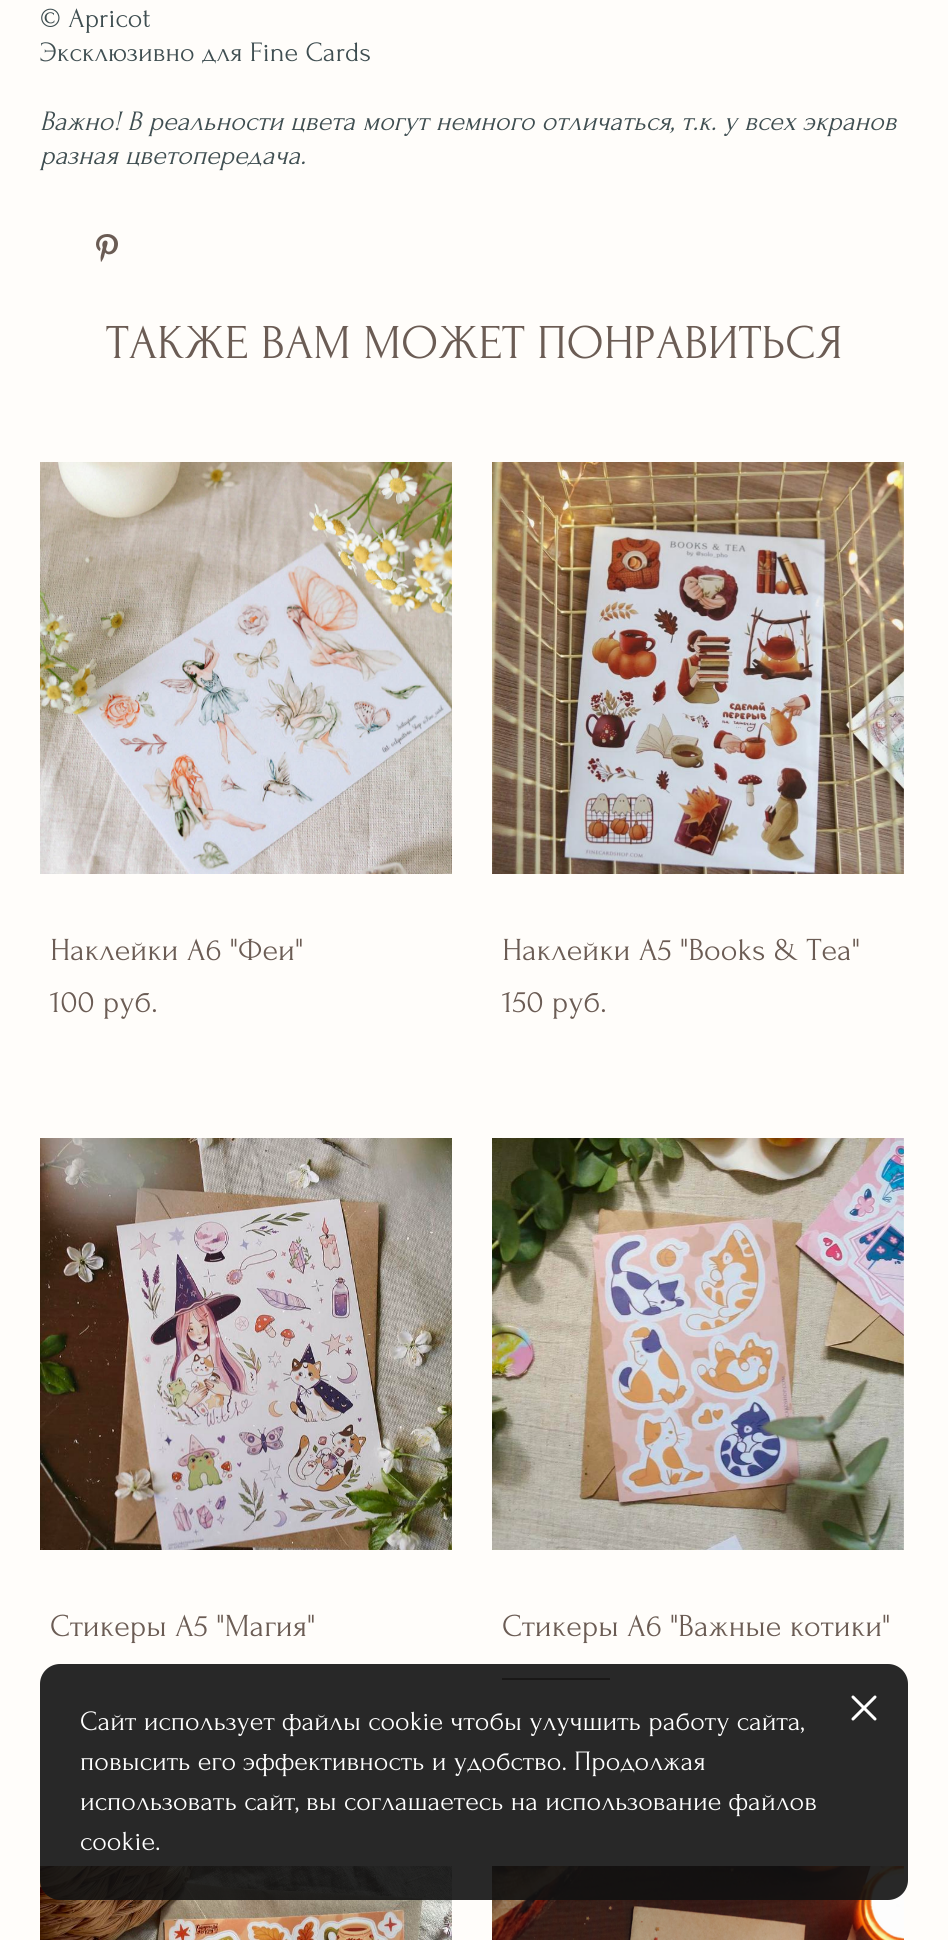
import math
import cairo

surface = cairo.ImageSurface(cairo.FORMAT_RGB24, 948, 1940)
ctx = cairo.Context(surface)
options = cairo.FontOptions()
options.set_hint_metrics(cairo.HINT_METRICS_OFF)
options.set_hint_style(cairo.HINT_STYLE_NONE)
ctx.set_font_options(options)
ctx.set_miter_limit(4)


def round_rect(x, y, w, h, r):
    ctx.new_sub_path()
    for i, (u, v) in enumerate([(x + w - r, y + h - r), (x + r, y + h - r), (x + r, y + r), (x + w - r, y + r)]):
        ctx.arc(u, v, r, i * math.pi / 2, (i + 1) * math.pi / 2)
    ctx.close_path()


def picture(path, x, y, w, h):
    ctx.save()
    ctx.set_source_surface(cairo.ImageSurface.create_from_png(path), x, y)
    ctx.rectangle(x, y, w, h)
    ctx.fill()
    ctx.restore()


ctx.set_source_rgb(1, 0.992, 0.98)
ctx.paint()
ctx.select_font_face("Forum")
ctx.set_font_size(28)
ctx.set_source_rgb(0.247, 0.306, 0.318)
ctx.move_to(40, 27)
ctx.show_text("© Apricot")
ctx.move_to(40, 61)
ctx.show_text("Эксклюзивно для Fine Cards")
ctx.select_font_face("Forum", cairo.FONT_SLANT_ITALIC)
ctx.move_to(40, 130)
ctx.show_text("Важно! В реальности цвета могут немного отличаться, т.к. у всех экранов")
ctx.move_to(40, 164)
ctx.show_text("разная цветопередача.")
picture("img1.png", 96, 234, 22, 28)
ctx.select_font_face("Forum")
ctx.set_font_size(48.5)
ctx.set_source_rgb(0.42, 0.361, 0.329)
ctx.move_to(106, 358)
ctx.show_text("ТАКЖЕ ВАМ МОЖЕТ ПОНРАВИТЬСЯ")
picture("img2.png", 40, 462, 412, 412)
ctx.set_font_size(32)
ctx.move_to(50, 960)
ctx.show_text("Наклейки А6 \"Феи\"")
ctx.move_to(50, 1012)
ctx.show_text("100 pуб.")
picture("img3.png", 492, 462, 412, 412)
ctx.move_to(502, 960)
ctx.show_text("Наклейки А5 \"Books & Tea\"")
ctx.move_to(502, 1012)
ctx.show_text("150 pуб.")
picture("img4.png", 40, 1138, 412, 412)
ctx.move_to(50, 1636)
ctx.show_text("Стикеры А5 \"Магия\"")
picture("img5.png", 492, 1138, 412, 412)
ctx.move_to(502, 1636)
ctx.show_text("Стикеры А6 \"Важные котики\"")
ctx.rectangle(502, 1678, 108, 2)
ctx.fill()
picture("img6.png", 40, 1866, 412, 74)
picture("img7.png", 492, 1866, 412, 74)
ctx.set_source_rgba(0.067, 0.067, 0.067, 0.9)
round_rect(40, 1664, 868, 236, 20)
ctx.fill()
ctx.new_path()
ctx.move_to(875, 1697)
ctx.line_to(853, 1719)
ctx.move_to(853, 1697)
ctx.line_to(875, 1719)
ctx.set_source_rgb(1, 1, 1)
ctx.set_line_width(3)
ctx.set_line_cap(cairo.LINE_CAP_ROUND)
ctx.set_line_join(cairo.LINE_JOIN_ROUND)
ctx.stroke()
ctx.set_font_size(28)
ctx.move_to(80, 1730)
ctx.show_text("Сайт использует файлы cookie чтобы улучшить работу сайта,")
ctx.move_to(80, 1770)
ctx.show_text("повысить его эффективность и удобство. Продолжая")
ctx.move_to(80, 1810)
ctx.show_text("использовать сайт, вы соглашаетесь на использование файлов")
ctx.move_to(80, 1850)
ctx.show_text("cookie.")
surface.write_to_png("page.png")
